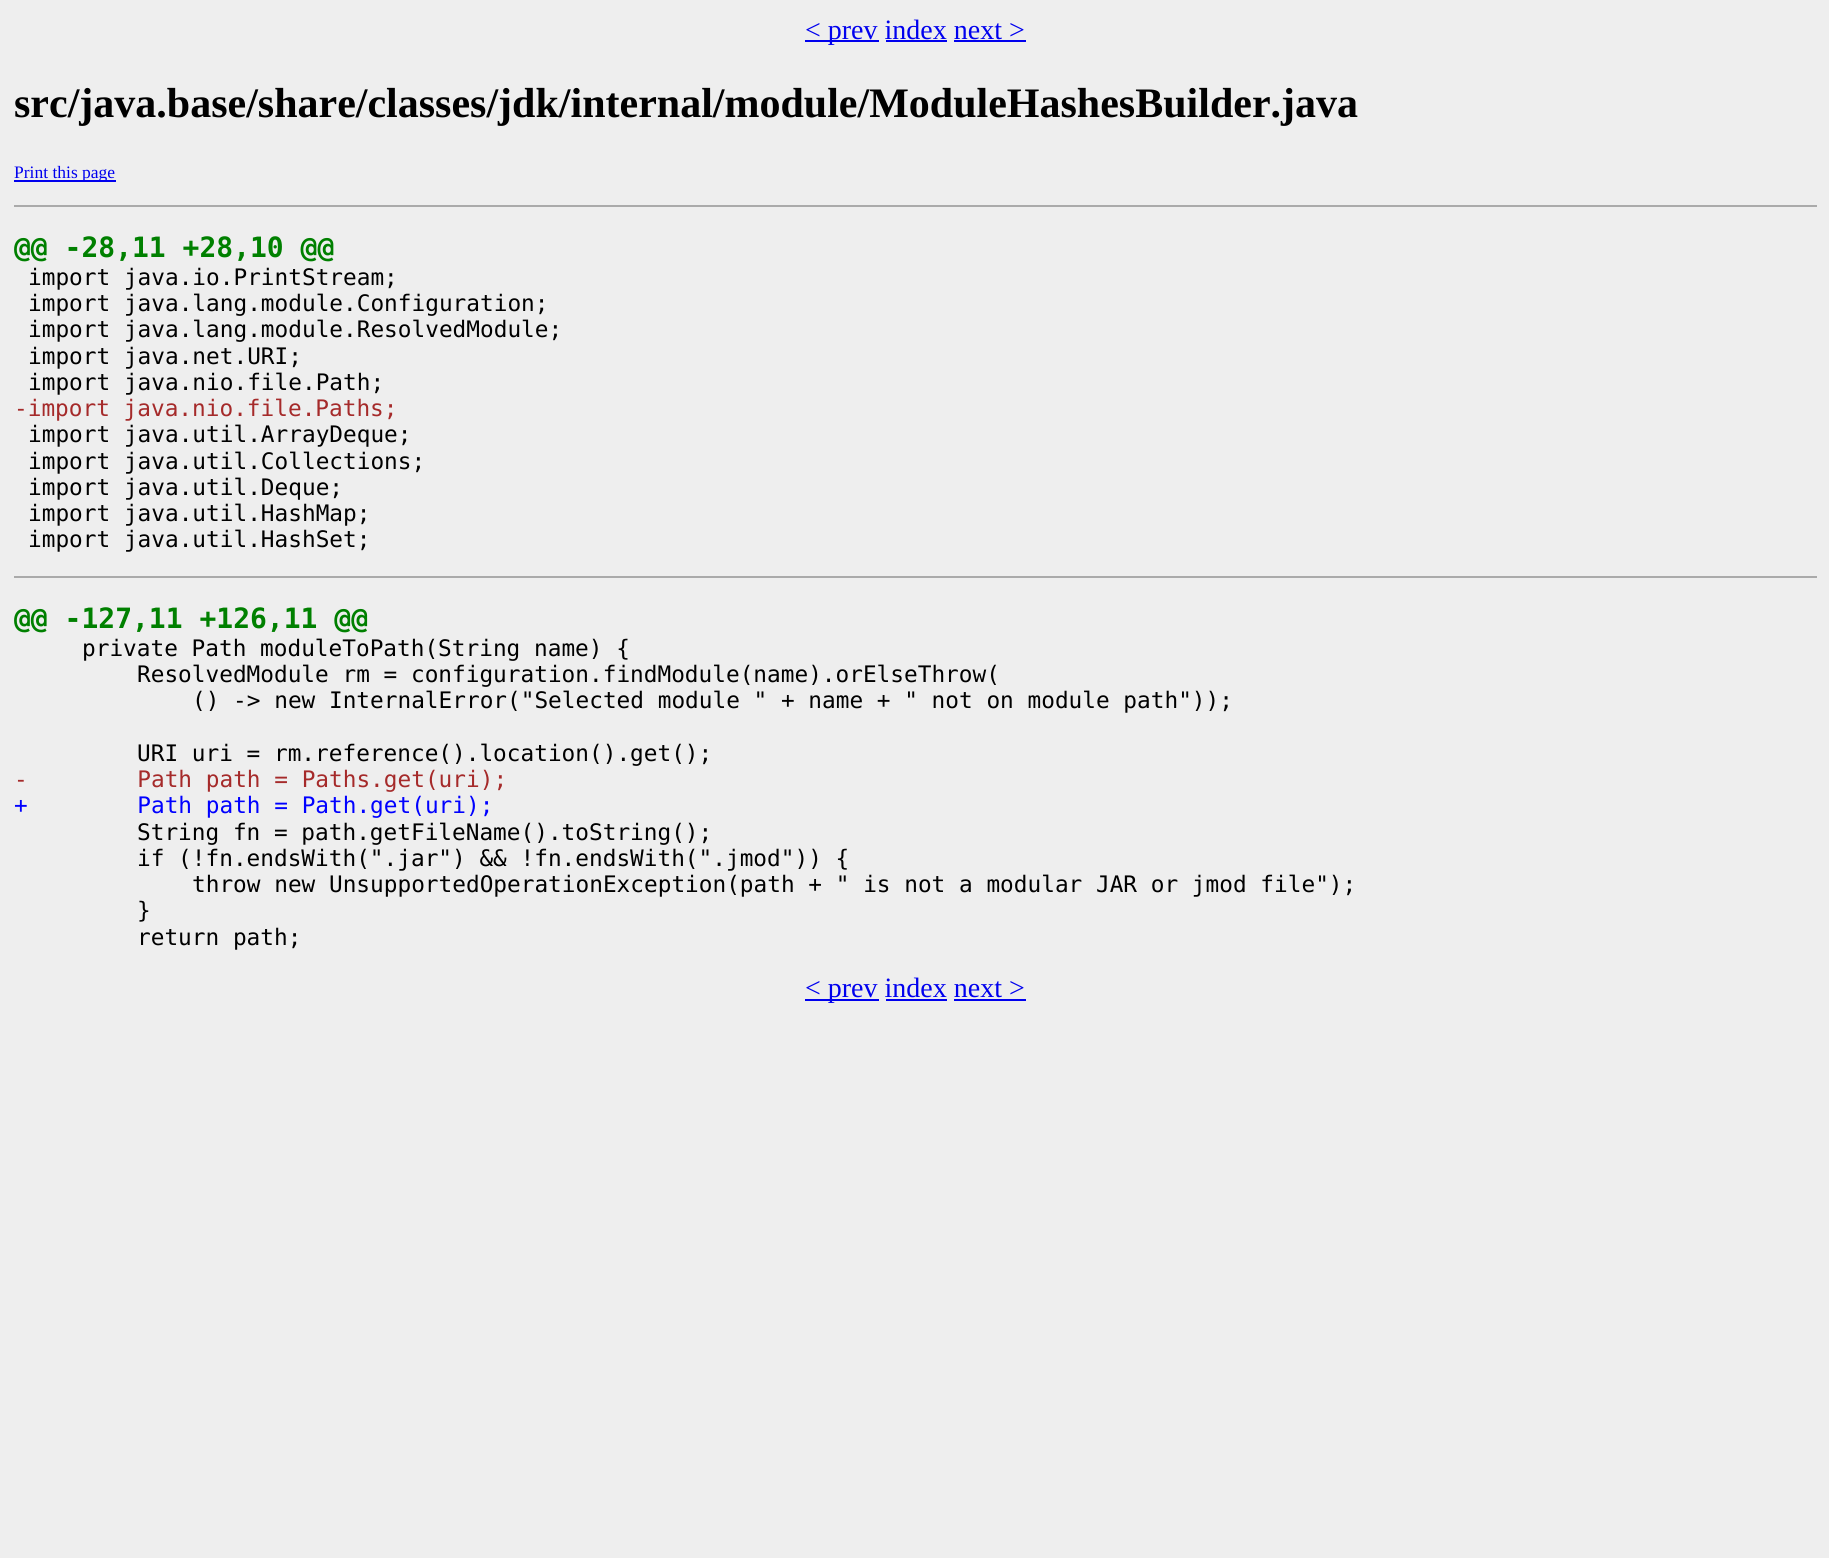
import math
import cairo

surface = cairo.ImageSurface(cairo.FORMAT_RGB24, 1829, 1558)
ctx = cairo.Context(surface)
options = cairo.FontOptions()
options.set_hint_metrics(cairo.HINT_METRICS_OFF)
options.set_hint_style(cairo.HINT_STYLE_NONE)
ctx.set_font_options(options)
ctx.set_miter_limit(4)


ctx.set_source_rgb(0.933, 0.933, 0.933)
ctx.paint()
ctx.set_source_rgb(0, 0, 0.933)
ctx.rectangle(805, 40, 74, 2)
ctx.fill()
ctx.select_font_face("Liberation Serif")
ctx.set_font_size(28)
ctx.move_to(805, 39)
ctx.show_text("< prev index next >")
ctx.rectangle(886, 40, 61, 2)
ctx.fill()
ctx.rectangle(954, 40, 72, 2)
ctx.fill()
ctx.select_font_face("Liberation Serif", cairo.FONT_SLANT_NORMAL, cairo.FONT_WEIGHT_BOLD)
ctx.set_font_size(42)
ctx.set_source_rgb(0, 0, 0)
ctx.move_to(14, 117)
ctx.show_text("src/java.base/share/classes/jdk/internal/module/ModuleHashesBuilder.java")
ctx.set_source_rgb(0, 0, 0.933)
ctx.rectangle(14, 180, 102, 2)
ctx.fill()
ctx.select_font_face("Liberation Serif")
ctx.set_font_size(17.5)
ctx.move_to(14, 178)
ctx.show_text("Print this page")
ctx.set_source_rgb(0.667, 0.667, 0.667)
ctx.rectangle(14, 205, 1803, 2)
ctx.fill()
ctx.select_font_face("DejaVu Sans Mono", cairo.FONT_SLANT_NORMAL, cairo.FONT_WEIGHT_BOLD)
ctx.set_font_size(28)
ctx.set_source_rgb(0, 0.502, 0)
ctx.move_to(14, 257)
ctx.show_text("@@ -28,11 +28,10 @@")
ctx.select_font_face("DejaVu Sans Mono")
ctx.set_font_size(22.75)
ctx.set_source_rgb(0, 0, 0)
ctx.move_to(28, 285)
ctx.show_text("import java.io.PrintStream;")
ctx.move_to(28, 311)
ctx.show_text("import java.lang.module.Configuration;")
ctx.move_to(28, 337)
ctx.show_text("import java.lang.module.ResolvedModule;")
ctx.move_to(28, 364)
ctx.show_text("import java.net.URI;")
ctx.move_to(28, 390)
ctx.show_text("import java.nio.file.Path;")
ctx.set_source_rgb(0.647, 0.165, 0.165)
ctx.move_to(14, 416)
ctx.show_text("-import java.nio.file.Paths;")
ctx.set_source_rgb(0, 0, 0)
ctx.move_to(28, 442)
ctx.show_text("import java.util.ArrayDeque;")
ctx.move_to(28, 469)
ctx.show_text("import java.util.Collections;")
ctx.move_to(28, 495)
ctx.show_text("import java.util.Deque;")
ctx.move_to(28, 521)
ctx.show_text("import java.util.HashMap;")
ctx.move_to(28, 547)
ctx.show_text("import java.util.HashSet;")
ctx.set_source_rgb(0.667, 0.667, 0.667)
ctx.rectangle(14, 576, 1803, 2)
ctx.fill()
ctx.select_font_face("DejaVu Sans Mono", cairo.FONT_SLANT_NORMAL, cairo.FONT_WEIGHT_BOLD)
ctx.set_font_size(28)
ctx.set_source_rgb(0, 0.502, 0)
ctx.move_to(14, 628)
ctx.show_text("@@ -127,11 +126,11 @@")
ctx.select_font_face("DejaVu Sans Mono")
ctx.set_font_size(22.75)
ctx.set_source_rgb(0, 0, 0)
ctx.move_to(82, 656)
ctx.show_text("private Path moduleToPath(String name) {")
ctx.move_to(137, 682)
ctx.show_text("ResolvedModule rm = configuration.findModule(name).orElseThrow(")
ctx.move_to(192, 708)
ctx.show_text("() -> new InternalError(\"Selected module \" + name + \" not on module path\"));")
ctx.move_to(137, 761)
ctx.show_text("URI uri = rm.reference().location().get();")
ctx.set_source_rgb(0.647, 0.165, 0.165)
ctx.move_to(14, 787)
ctx.show_text("-        Path path = Paths.get(uri);")
ctx.set_source_rgb(0, 0, 1)
ctx.move_to(14, 813)
ctx.show_text("+        Path path = Path.get(uri);")
ctx.set_source_rgb(0, 0, 0)
ctx.move_to(137, 840)
ctx.show_text("String fn = path.getFileName().toString();")
ctx.move_to(137, 866)
ctx.show_text("if (!fn.endsWith(\".jar\") && !fn.endsWith(\".jmod\")) {")
ctx.move_to(192, 892)
ctx.show_text("throw new UnsupportedOperationException(path + \" is not a modular JAR or jmod file\");")
ctx.move_to(137, 918)
ctx.show_text("}")
ctx.move_to(137, 945)
ctx.show_text("return path;")
ctx.set_source_rgb(0, 0, 0.933)
ctx.rectangle(805, 999, 74, 2)
ctx.fill()
ctx.select_font_face("Liberation Serif")
ctx.set_font_size(28)
ctx.move_to(805, 997)
ctx.show_text("< prev index next >")
ctx.rectangle(886, 999, 61, 2)
ctx.fill()
ctx.rectangle(954, 999, 72, 2)
ctx.fill()
surface.write_to_png("page.png")
